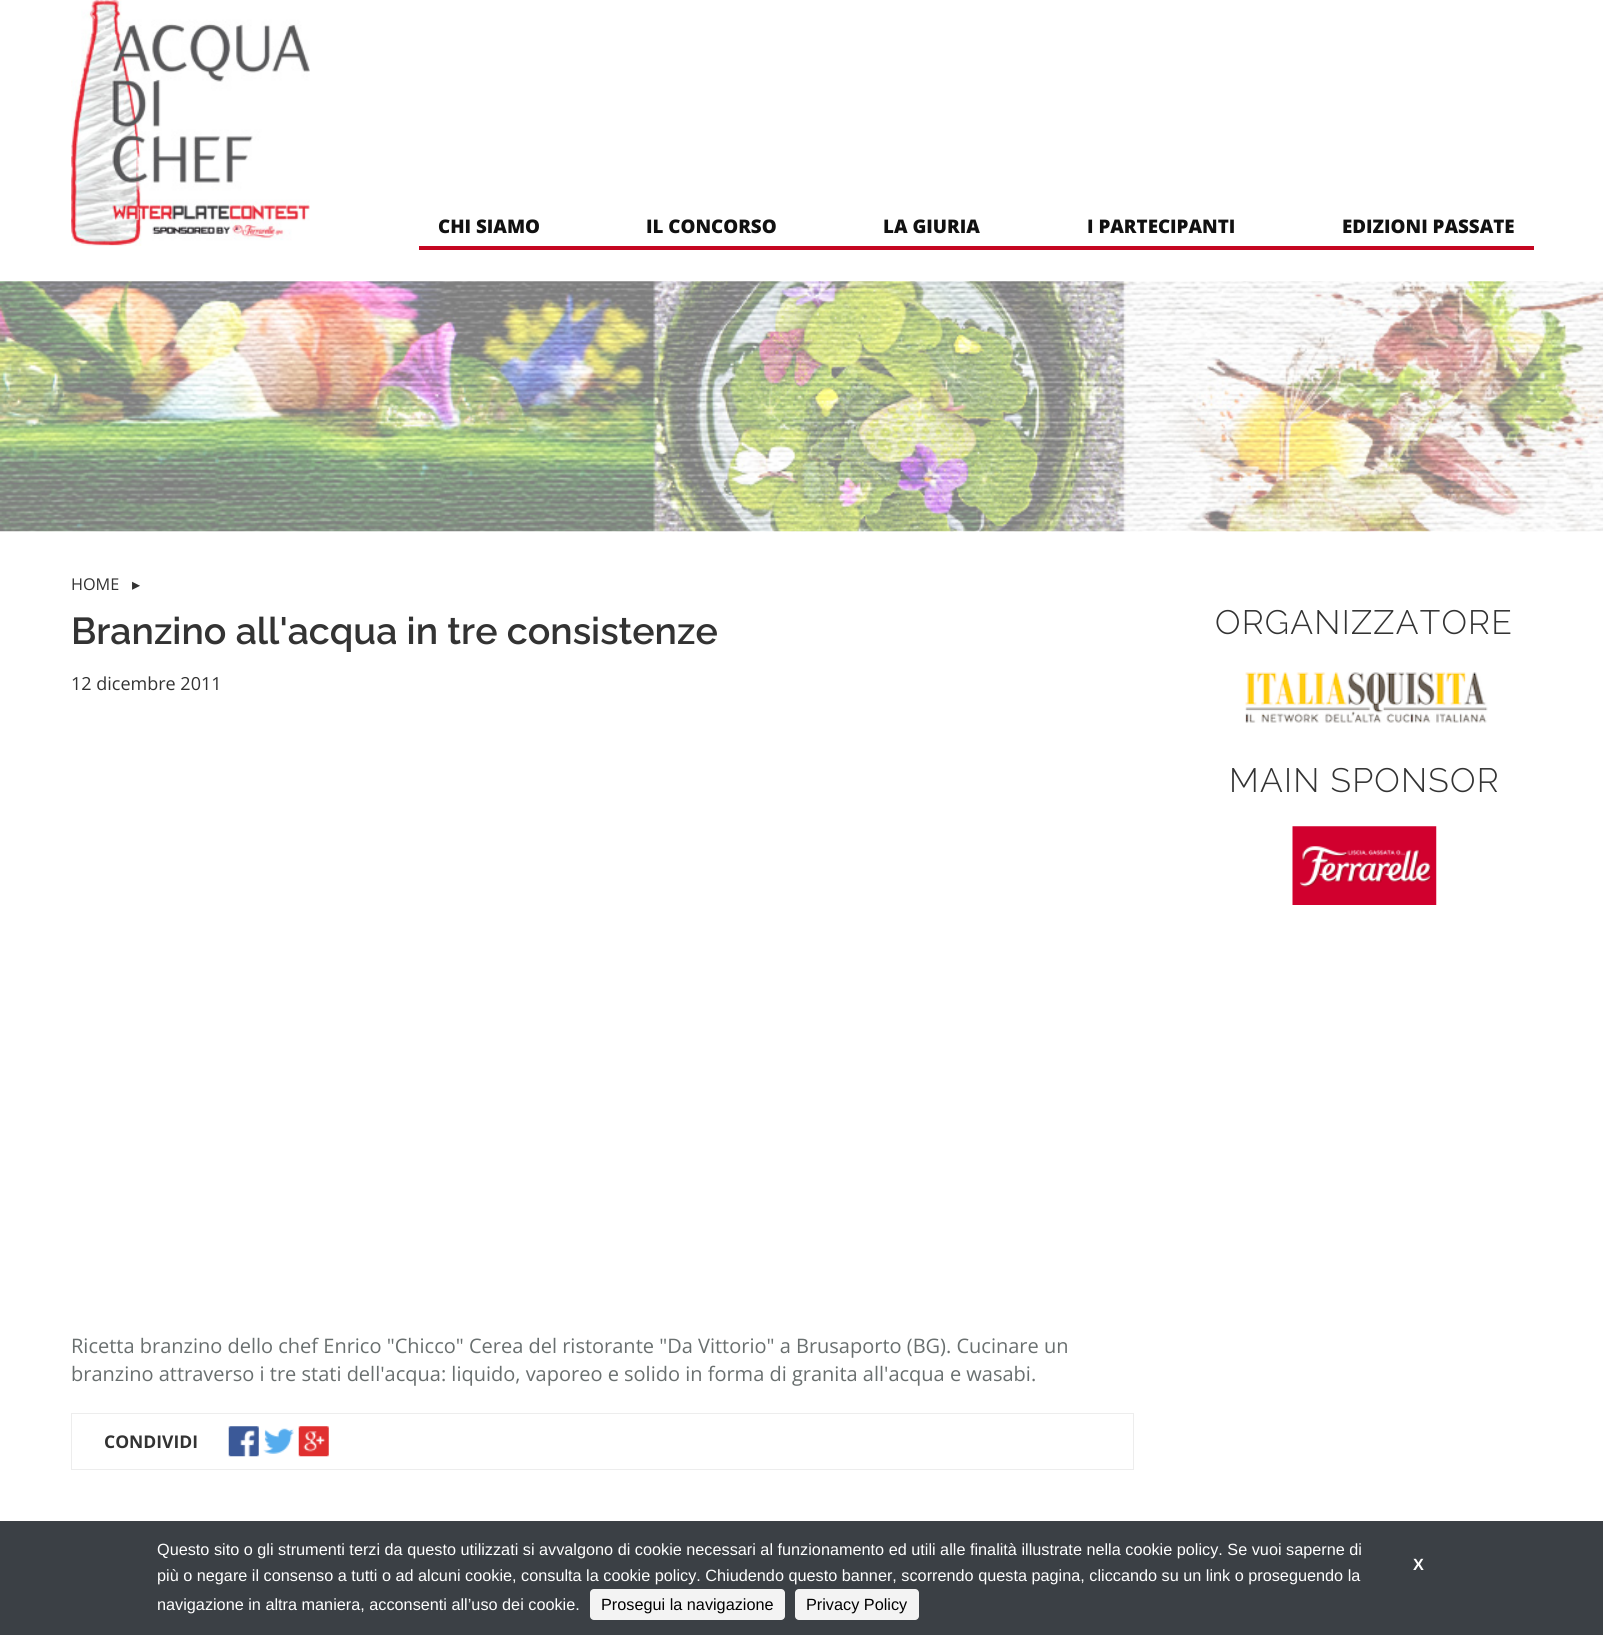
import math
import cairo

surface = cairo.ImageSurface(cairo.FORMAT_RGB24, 1603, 1635)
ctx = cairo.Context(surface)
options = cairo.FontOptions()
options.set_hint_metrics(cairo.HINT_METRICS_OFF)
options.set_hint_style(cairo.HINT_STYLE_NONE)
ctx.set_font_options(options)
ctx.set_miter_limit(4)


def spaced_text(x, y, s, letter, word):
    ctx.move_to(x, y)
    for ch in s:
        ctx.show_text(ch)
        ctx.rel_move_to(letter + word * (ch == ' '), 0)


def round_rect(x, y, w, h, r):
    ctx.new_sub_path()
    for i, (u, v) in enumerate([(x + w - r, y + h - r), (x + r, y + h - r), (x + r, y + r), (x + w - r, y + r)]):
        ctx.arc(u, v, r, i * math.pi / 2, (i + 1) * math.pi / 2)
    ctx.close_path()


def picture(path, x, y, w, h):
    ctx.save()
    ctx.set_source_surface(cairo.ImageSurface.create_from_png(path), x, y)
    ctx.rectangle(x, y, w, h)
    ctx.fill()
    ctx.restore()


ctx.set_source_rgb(1, 1, 1)
ctx.paint()
picture("img1.png", 71, 0, 239, 246)
ctx.set_source_rgb(0.773, 0.024, 0.129)
ctx.rectangle(419, 246, 1115, 4)
ctx.fill()
ctx.select_font_face("Open Sans ExtraBold")
ctx.set_font_size(18.75)
ctx.set_source_rgb(0.067, 0.067, 0.067)
ctx.move_to(438, 233)
ctx.show_text("CHI SIAMO")
ctx.move_to(646, 233)
ctx.show_text("IL CONCORSO")
ctx.move_to(883, 233)
ctx.show_text("LA GIURIA")
ctx.move_to(1087, 233)
ctx.show_text("I PARTECIPANTI")
ctx.move_to(1342, 233)
ctx.show_text("EDIZIONI PASSATE")
picture("img2.png", 0, 281, 1603, 251)
ctx.select_font_face("Open Sans")
ctx.set_font_size(16.25)
ctx.set_source_rgb(0.2, 0.2, 0.2)
ctx.move_to(71, 590)
ctx.show_text("HOME")
ctx.select_font_face("DejaVu Sans")
ctx.move_to(132, 590)
ctx.show_text("▸")
ctx.select_font_face("Raleway SemiBold")
ctx.set_font_size(37.5)
ctx.move_to(71, 644)
ctx.show_text("Branzino all'acqua in tre consistenze")
ctx.select_font_face("Open Sans")
ctx.set_font_size(18)
ctx.move_to(71, 690)
ctx.show_text("12 dicembre 2011")
ctx.set_font_size(20)
ctx.set_source_rgb(0.412, 0.435, 0.435)
ctx.move_to(71, 1353)
ctx.show_text("Ricetta branzino dello chef Enrico \"Chicco\" Cerea del ristorante \"Da Vittorio\" a Brusaporto (BG). Cucinare un")
ctx.move_to(71, 1381)
ctx.show_text("branzino attraverso i tre stati dell'acqua: liquido, vaporeo e solido in forma di granita all'acqua e wasabi.")
ctx.rectangle(71.5, 1413.5, 1062, 56)
ctx.set_source_rgb(0.929, 0.929, 0.929)
ctx.set_line_width(1)
ctx.stroke()
ctx.select_font_face("Open Sans", cairo.FONT_SLANT_NORMAL, cairo.FONT_WEIGHT_BOLD)
ctx.set_font_size(17.5)
ctx.set_source_rgb(0.2, 0.2, 0.2)
ctx.move_to(104, 1448)
ctx.show_text("CONDIVIDI")
picture("img3.png", 228, 1426, 31, 31)
picture("img4.png", 263, 1428, 31, 26)
picture("img5.png", 298, 1426, 31, 31)
ctx.select_font_face("Raleway Light")
ctx.set_font_size(33.75)
spaced_text(1215, 634, "ORGANIZZATORE", 1.25, 0)
picture("img6.png", 1245, 672, 243, 51)
spaced_text(1229, 792, "MAIN SPONSOR", 1.25, 0)
picture("img7.png", 1292, 826, 145, 79)
ctx.set_source_rgb(0.231, 0.251, 0.271)
ctx.rectangle(0, 1521, 1603, 114)
ctx.fill()
ctx.select_font_face("Liberation Sans")
ctx.set_font_size(16.25)
ctx.set_source_rgb(1, 1, 1)
ctx.move_to(157, 1555)
ctx.show_text("Questo sito o gli strumenti terzi da questo utilizzati si avvalgono di cookie necessari al funzionamento ed utili alle finalità illustrate nella cookie policy. Se vuoi saperne di")
ctx.select_font_face("Liberation Sans", cairo.FONT_SLANT_NORMAL, cairo.FONT_WEIGHT_BOLD)
ctx.move_to(1413, 1570)
ctx.show_text("X")
ctx.select_font_face("Liberation Sans")
ctx.move_to(157, 1581)
ctx.show_text("più o negare il consenso a tutti o ad alcuni cookie, consulta la cookie policy. Chiudendo questo banner, scorrendo questa pagina, cliccando su un link o proseguendo la")
ctx.move_to(157, 1610)
ctx.show_text("navigazione in altra maniera, acconsenti all’uso dei cookie.")
ctx.set_source_rgb(0.953, 0.953, 0.953)
round_rect(590, 1589, 195, 31, 4)
ctx.fill()
ctx.set_source_rgb(0, 0, 0)
ctx.move_to(601, 1610)
ctx.show_text("Prosegui la navigazione")
ctx.set_source_rgb(0.953, 0.953, 0.953)
round_rect(795, 1589, 124, 31, 4)
ctx.fill()
ctx.set_source_rgb(0, 0, 0)
ctx.move_to(806, 1610)
ctx.show_text("Privacy Policy")
surface.write_to_png("page.png")
